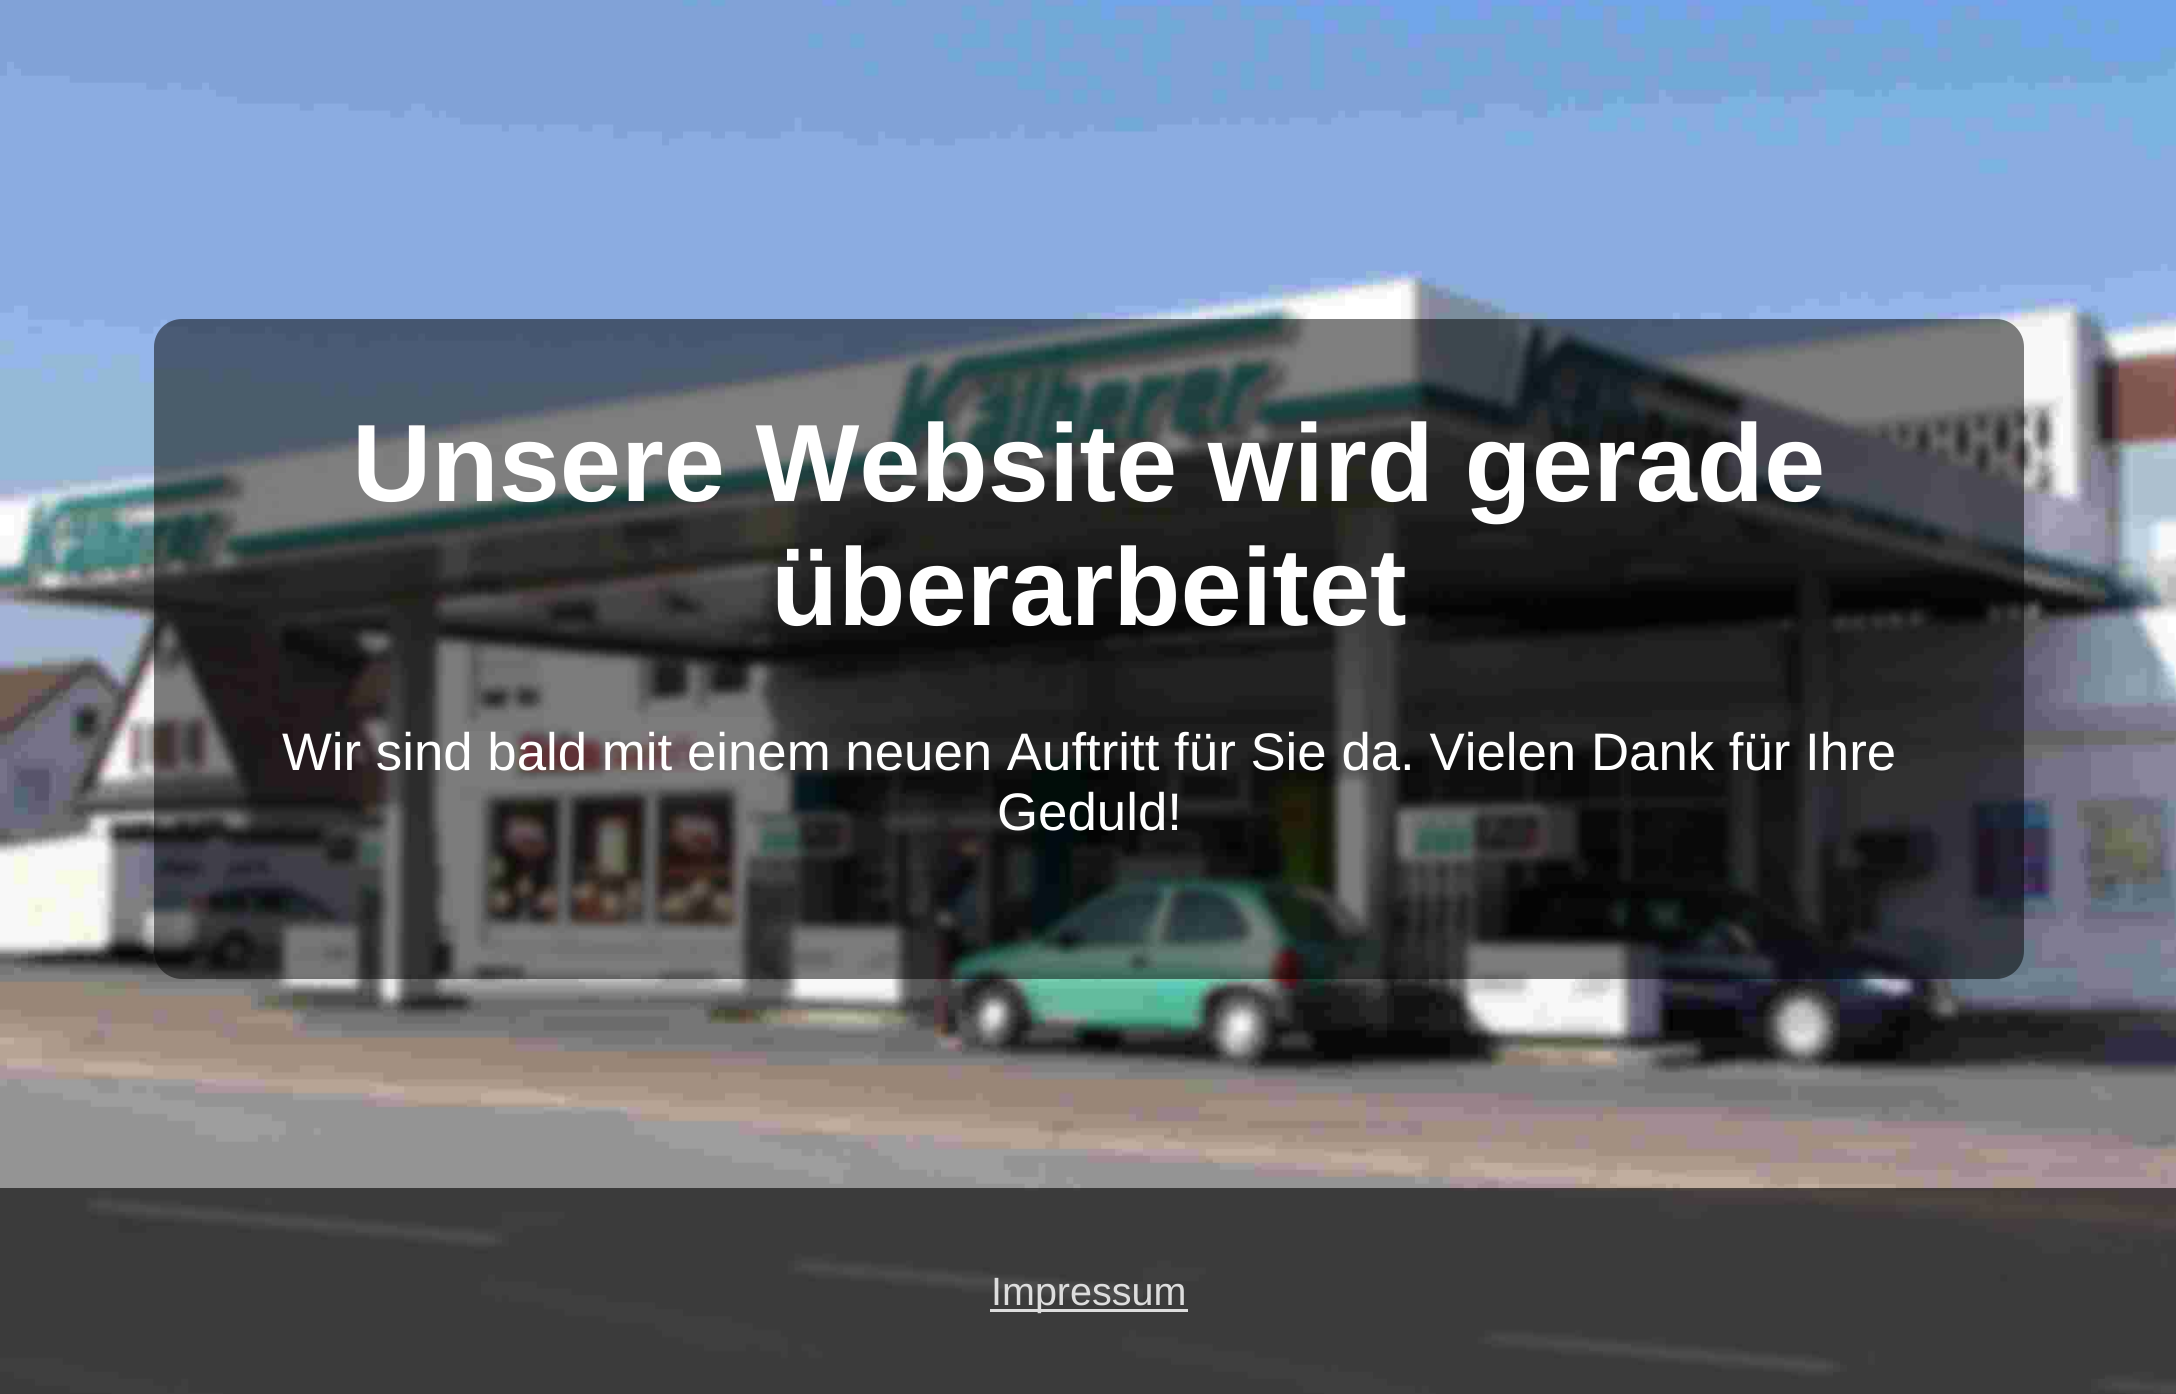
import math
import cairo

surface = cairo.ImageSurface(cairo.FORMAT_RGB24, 2176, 1394)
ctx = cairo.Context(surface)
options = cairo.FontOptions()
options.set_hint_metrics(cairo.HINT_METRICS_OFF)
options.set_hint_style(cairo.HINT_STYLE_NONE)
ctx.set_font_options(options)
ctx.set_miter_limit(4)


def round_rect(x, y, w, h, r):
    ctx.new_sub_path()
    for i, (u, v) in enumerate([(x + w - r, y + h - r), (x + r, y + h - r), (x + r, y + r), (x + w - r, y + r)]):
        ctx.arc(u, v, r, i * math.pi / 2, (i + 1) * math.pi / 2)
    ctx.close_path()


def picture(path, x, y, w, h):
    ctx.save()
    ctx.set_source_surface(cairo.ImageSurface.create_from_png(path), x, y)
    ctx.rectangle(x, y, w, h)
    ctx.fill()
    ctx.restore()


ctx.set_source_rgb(1, 1, 1)
ctx.paint()
picture("img1.png", 0, 0, 2176, 1394)
ctx.set_source_rgba(0, 0, 0, 0.5)
round_rect(154, 319, 1870, 660, 28)
ctx.fill()
ctx.select_font_face("Liberation Sans", cairo.FONT_SLANT_NORMAL, cairo.FONT_WEIGHT_BOLD)
ctx.set_font_size(110)
ctx.set_source_rgb(1, 1, 1)
ctx.move_to(352, 501)
ctx.show_text("Unsere Website wird gerade")
ctx.move_to(771, 625)
ctx.show_text("überarbeitet")
ctx.select_font_face("Liberation Sans")
ctx.set_font_size(52.8)
ctx.move_to(282, 770)
ctx.show_text("Wir sind bald mit einem neuen Auftritt für Sie da. Vielen Dank für Ihre")
ctx.move_to(997, 830)
ctx.show_text("Geduld!")
ctx.set_source_rgba(0, 0, 0, 0.6)
ctx.rectangle(0, 1188, 2176, 206)
ctx.fill()
ctx.set_source_rgb(0.867, 0.867, 0.867)
ctx.rectangle(990, 1309, 198, 3)
ctx.fill()
ctx.set_font_size(39.5)
ctx.move_to(991, 1305)
ctx.show_text("Impressum")
surface.write_to_png("page.png")
